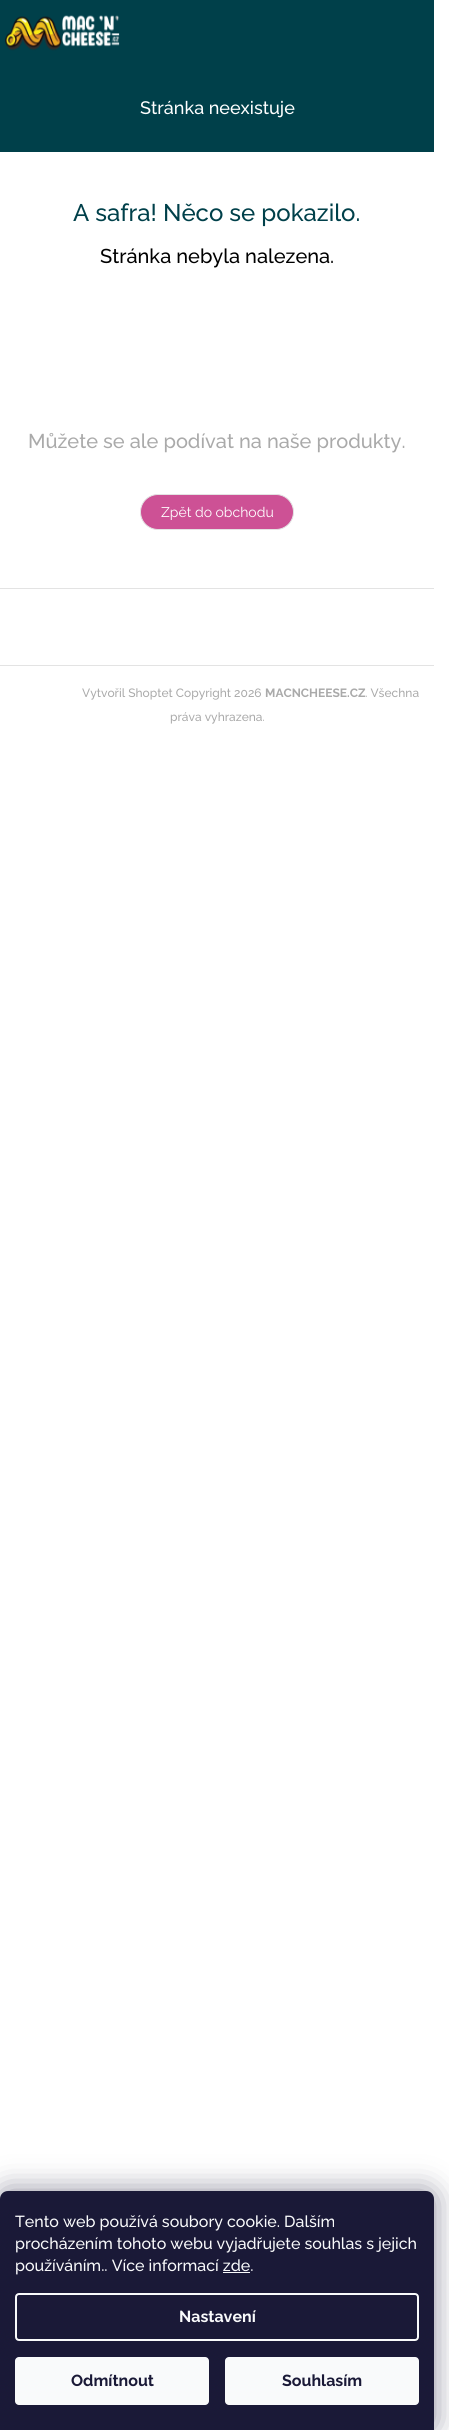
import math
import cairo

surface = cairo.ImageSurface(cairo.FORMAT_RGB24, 449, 2430)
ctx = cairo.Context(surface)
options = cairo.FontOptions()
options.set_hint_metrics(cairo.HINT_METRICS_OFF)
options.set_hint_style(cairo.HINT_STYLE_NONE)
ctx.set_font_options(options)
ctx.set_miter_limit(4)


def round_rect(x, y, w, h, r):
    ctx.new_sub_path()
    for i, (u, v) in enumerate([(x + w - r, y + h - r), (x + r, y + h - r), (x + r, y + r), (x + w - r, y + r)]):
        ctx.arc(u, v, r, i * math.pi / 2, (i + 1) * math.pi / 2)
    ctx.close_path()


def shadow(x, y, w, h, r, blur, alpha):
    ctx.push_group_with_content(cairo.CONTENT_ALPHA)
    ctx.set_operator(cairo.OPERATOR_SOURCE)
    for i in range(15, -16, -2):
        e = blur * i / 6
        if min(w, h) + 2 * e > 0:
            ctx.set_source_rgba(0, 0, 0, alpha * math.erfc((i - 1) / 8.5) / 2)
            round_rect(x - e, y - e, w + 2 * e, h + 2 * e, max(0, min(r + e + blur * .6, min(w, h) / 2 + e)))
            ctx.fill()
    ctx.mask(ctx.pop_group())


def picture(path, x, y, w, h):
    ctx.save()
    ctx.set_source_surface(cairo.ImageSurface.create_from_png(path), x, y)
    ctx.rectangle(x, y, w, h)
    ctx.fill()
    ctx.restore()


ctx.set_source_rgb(1, 1, 1)
ctx.paint()
ctx.set_source_rgb(0, 0.251, 0.29)
ctx.rectangle(0, 0, 434, 152)
ctx.fill()
picture("img1.png", 5, 15, 115, 36)
ctx.select_font_face("Raleway Medium")
ctx.set_font_size(18)
ctx.set_source_rgb(1, 1, 1)
ctx.move_to(140, 114)
ctx.show_text("Stránka neexistuje")
ctx.set_font_size(24)
ctx.set_source_rgb(0, 0.251, 0.29)
ctx.move_to(73, 221)
ctx.show_text("A safra! Něco se pokazilo.")
ctx.set_font_size(20)
ctx.set_source_rgb(0, 0, 0)
ctx.move_to(100, 263)
ctx.show_text("Stránka nebyla nalezena.")
ctx.set_source_rgb(0.667, 0.667, 0.667)
ctx.move_to(28, 448)
ctx.show_text("Můžete se ale podívat na naše produkty.")
ctx.set_source_rgb(0.804, 0.318, 0.584)
round_rect(140.5, 494.5, 153, 35, 17.5)
ctx.fill_preserve()
ctx.set_source_rgb(0.89, 0.89, 0.89)
ctx.set_line_width(1)
ctx.stroke()
ctx.select_font_face("Raleway")
ctx.set_font_size(14)
ctx.set_source_rgb(1, 1, 1)
ctx.move_to(161, 517)
ctx.show_text("Zpět do obchodu")
ctx.set_source_rgb(0.89, 0.89, 0.89)
ctx.rectangle(0, 588, 434, 1)
ctx.fill()
ctx.rectangle(0, 665, 434, 1)
ctx.fill()
ctx.select_font_face("Raleway Medium")
ctx.set_font_size(12)
ctx.set_source_rgb(0.667, 0.667, 0.667)
ctx.move_to(82, 697)
ctx.show_text("Vytvořil Shoptet Copyright 2026")
ctx.select_font_face("Raleway", cairo.FONT_SLANT_NORMAL, cairo.FONT_WEIGHT_BOLD)
ctx.move_to(265, 697)
ctx.show_text("MACNCHEESE.CZ")
ctx.select_font_face("Raleway Medium")
ctx.move_to(365, 697)
ctx.show_text(". Všechna")
ctx.move_to(170, 721)
ctx.show_text("práva vyhrazena.")
ctx.set_source_rgb(0.106, 0.098, 0.224)
shadow(0, 2191, 434, 239, 8, 15, 0.5)
ctx.set_source_rgb(0.102, 0.098, 0.216)
ctx.new_path()
ctx.move_to(8, 2191)
ctx.line_to(426, 2191)
ctx.curve_to(430.5, 2191, 434, 2194.5, 434, 2199)
ctx.line_to(434, 2430)
ctx.line_to(0, 2430)
ctx.line_to(0, 2199)
ctx.curve_to(0, 2194.5, 3.5, 2191, 8, 2191)
ctx.close_path()
ctx.fill()
ctx.set_font_size(16)
ctx.set_source_rgb(0.973, 0.98, 0.984)
ctx.move_to(15, 2227)
ctx.show_text("Tento web používá soubory cookie. Dalším")
ctx.move_to(15, 2249)
ctx.show_text("procházením tohoto webu vyjadřujete souhlas s jejich")
ctx.move_to(15, 2271)
ctx.show_text("používáním.. Více informací zde.")
ctx.rectangle(223, 2272, 27, 1)
ctx.fill()
round_rect(16, 2294, 402, 46, 3)
ctx.set_line_width(2)
ctx.stroke()
ctx.select_font_face("Raleway", cairo.FONT_SLANT_NORMAL, cairo.FONT_WEIGHT_BOLD)
ctx.move_to(179, 2322)
ctx.show_text("Nastavení")
round_rect(15, 2357, 194, 48, 4)
ctx.fill()
ctx.set_source_rgb(0.102, 0.098, 0.216)
ctx.move_to(71, 2386)
ctx.show_text("Odmítnout")
ctx.set_source_rgb(0.973, 0.98, 0.984)
round_rect(225, 2357, 194, 48, 4)
ctx.fill()
ctx.set_source_rgb(0.102, 0.098, 0.216)
ctx.move_to(282, 2386)
ctx.show_text("Souhlasím")
surface.write_to_png("page.png")
